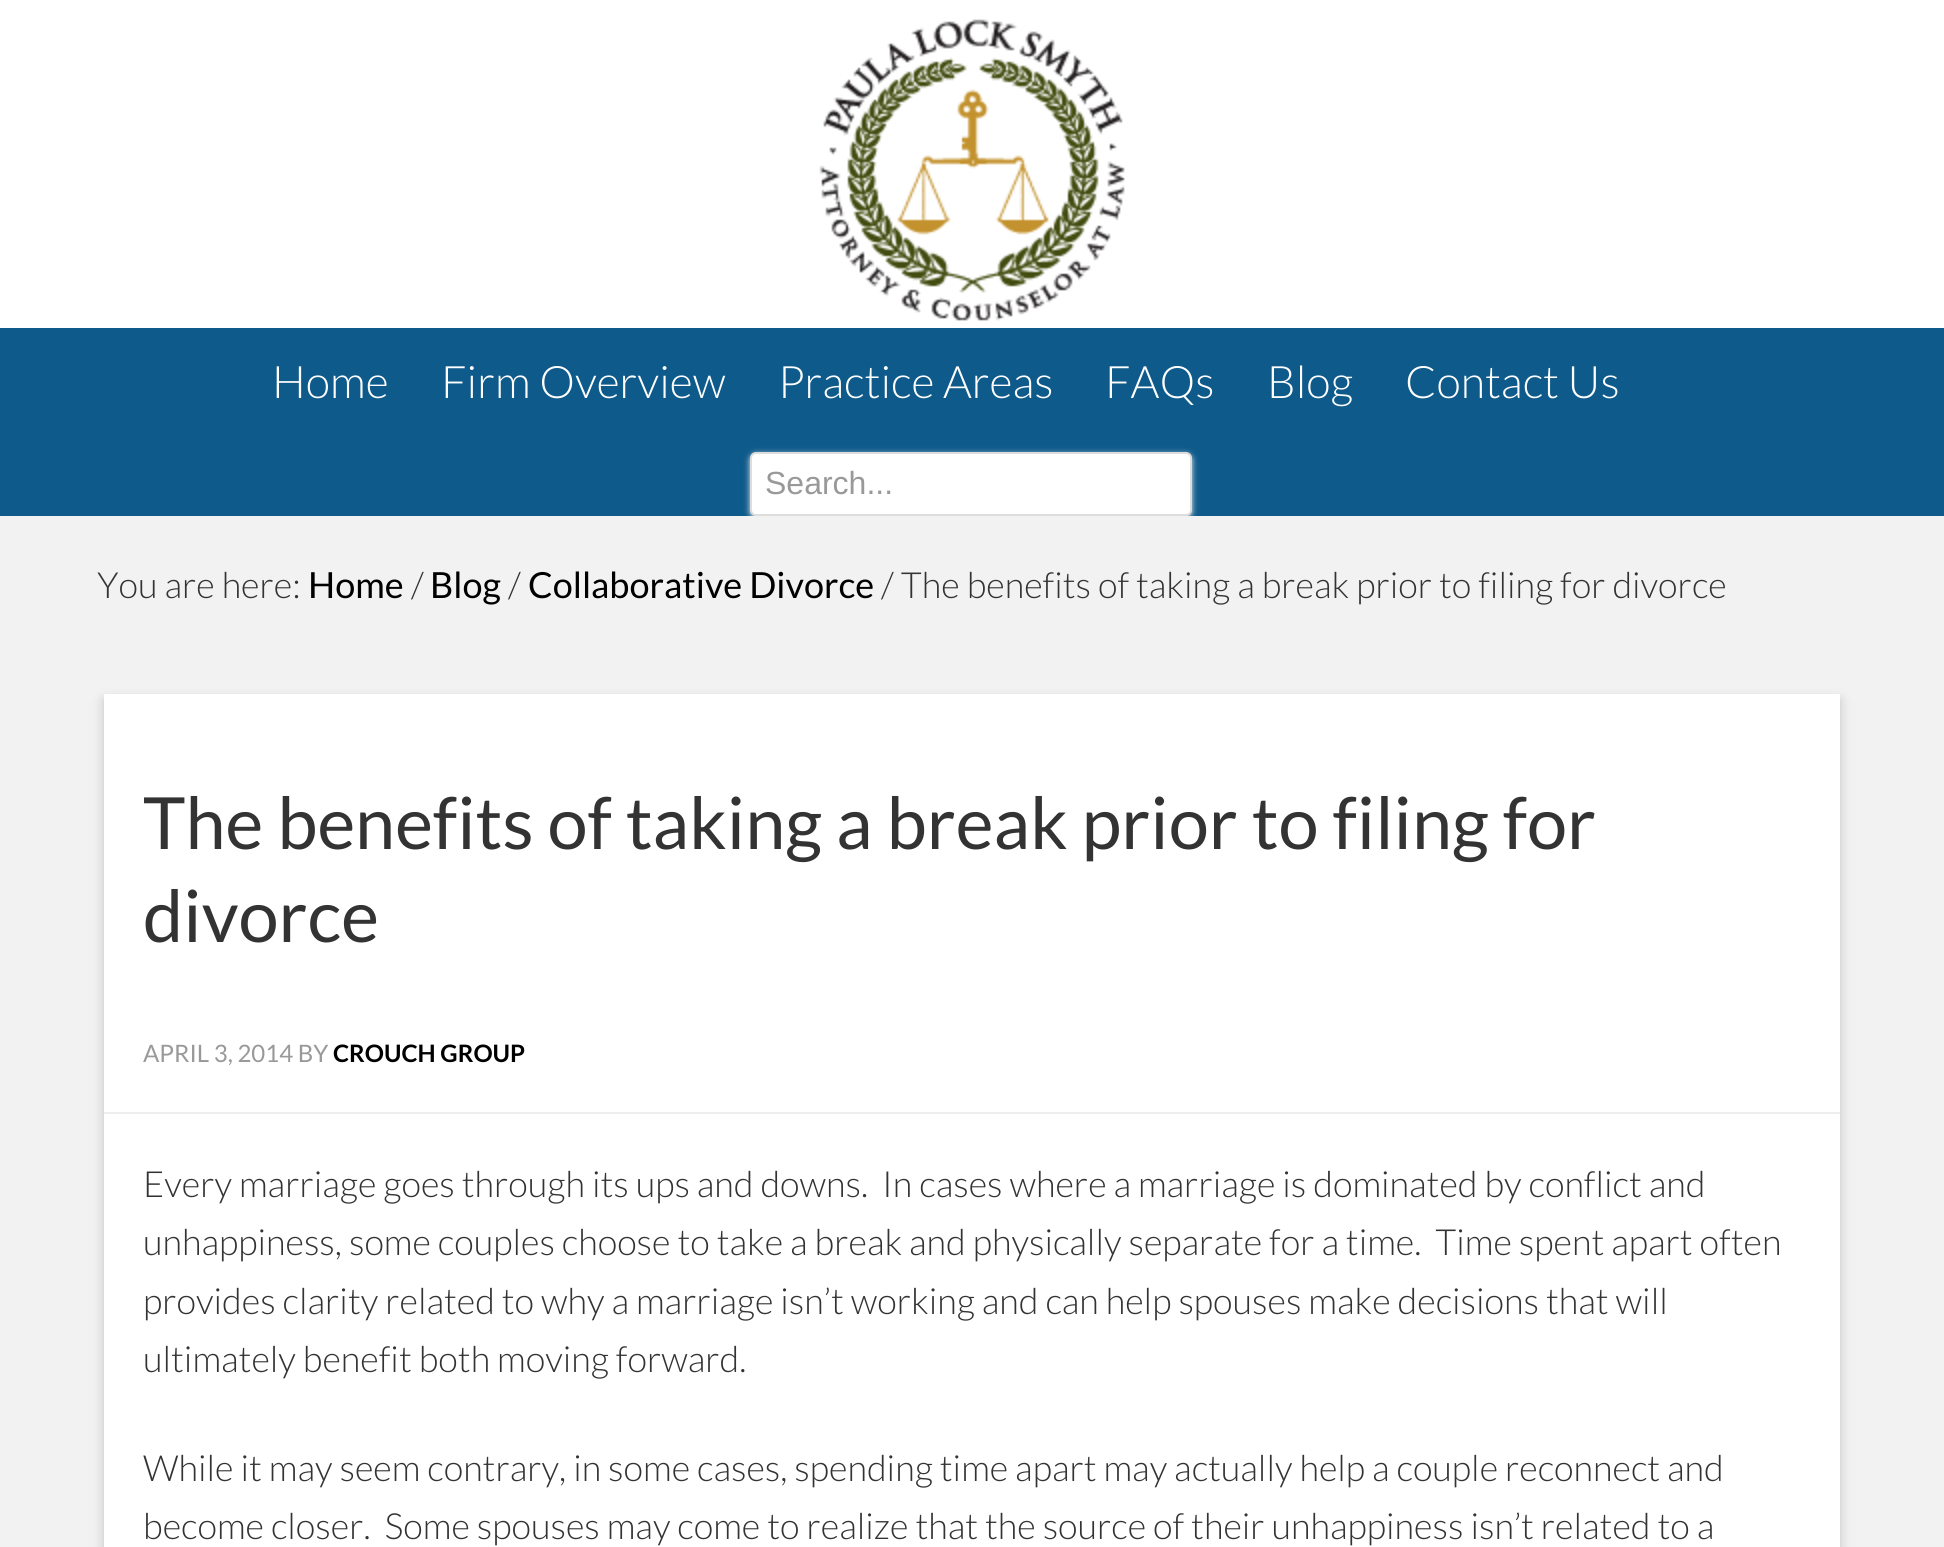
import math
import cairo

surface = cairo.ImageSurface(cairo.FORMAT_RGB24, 1944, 1547)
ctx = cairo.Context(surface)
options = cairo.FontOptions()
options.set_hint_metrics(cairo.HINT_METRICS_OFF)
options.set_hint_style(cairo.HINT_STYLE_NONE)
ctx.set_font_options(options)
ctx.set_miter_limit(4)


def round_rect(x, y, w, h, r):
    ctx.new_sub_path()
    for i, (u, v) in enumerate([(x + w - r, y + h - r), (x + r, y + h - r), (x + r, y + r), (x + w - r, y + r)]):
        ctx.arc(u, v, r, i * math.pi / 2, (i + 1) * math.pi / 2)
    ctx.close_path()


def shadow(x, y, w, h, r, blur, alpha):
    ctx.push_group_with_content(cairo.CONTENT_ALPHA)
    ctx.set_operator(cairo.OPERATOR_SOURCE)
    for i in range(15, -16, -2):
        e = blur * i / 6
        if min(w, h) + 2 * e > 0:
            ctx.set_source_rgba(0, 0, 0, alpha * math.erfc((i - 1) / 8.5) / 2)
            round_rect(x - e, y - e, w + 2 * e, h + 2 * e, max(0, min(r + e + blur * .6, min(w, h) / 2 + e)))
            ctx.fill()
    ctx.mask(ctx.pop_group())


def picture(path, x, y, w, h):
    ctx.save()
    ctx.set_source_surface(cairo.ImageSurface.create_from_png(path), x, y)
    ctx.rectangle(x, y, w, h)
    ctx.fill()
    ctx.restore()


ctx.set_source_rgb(0.949, 0.949, 0.949)
ctx.paint()
ctx.set_source_rgb(1, 1, 1)
ctx.rectangle(0, 0, 1944, 328)
ctx.fill()
picture("img1.png", 819, 19, 306, 302)
ctx.set_source_rgb(0.055, 0.353, 0.545)
ctx.rectangle(0, 328, 1944, 188)
ctx.fill()
ctx.select_font_face("Lato Light")
ctx.set_font_size(44.75)
ctx.set_source_rgb(1, 1, 1)
ctx.move_to(272, 398)
ctx.show_text("Home")
ctx.move_to(441, 398)
ctx.show_text("Firm Overview")
ctx.move_to(778, 398)
ctx.show_text("Practice Areas")
ctx.move_to(1105, 398)
ctx.show_text("FAQs")
ctx.move_to(1267, 398)
ctx.show_text("Blog")
ctx.move_to(1405, 398)
ctx.show_text("Contact Us")
ctx.save()
ctx.rectangle(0, 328, 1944, 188)
ctx.clip()
ctx.set_source_rgb(0.933, 0.933, 0.933)
shadow(750, 454, 442, 64, 6, 3, 1)
ctx.restore()
round_rect(751, 453, 440, 62, 5)
ctx.fill_preserve()
ctx.set_source_rgb(0.867, 0.867, 0.867)
ctx.stroke()
ctx.select_font_face("Liberation Sans")
ctx.set_font_size(32)
ctx.set_source_rgb(0.6, 0.6, 0.6)
ctx.move_to(765, 494)
ctx.show_text("Search...")
ctx.select_font_face("Lato Light")
ctx.set_font_size(36)
ctx.set_source_rgb(0.2, 0.2, 0.2)
ctx.move_to(97, 598)
ctx.show_text("You are here:")
ctx.select_font_face("Lato")
ctx.set_source_rgb(0, 0, 0)
ctx.move_to(308, 598)
ctx.show_text("Home")
ctx.select_font_face("Lato Light")
ctx.set_source_rgb(0.2, 0.2, 0.2)
ctx.move_to(411, 598)
ctx.show_text("/")
ctx.select_font_face("Lato")
ctx.set_source_rgb(0, 0, 0)
ctx.move_to(430, 598)
ctx.show_text("Blog")
ctx.select_font_face("Lato Light")
ctx.set_source_rgb(0.2, 0.2, 0.2)
ctx.move_to(508, 598)
ctx.show_text("/")
ctx.select_font_face("Lato")
ctx.set_source_rgb(0, 0, 0)
ctx.move_to(528, 598)
ctx.show_text("Collaborative Divorce")
ctx.select_font_face("Lato Light")
ctx.set_source_rgb(0.2, 0.2, 0.2)
ctx.move_to(881, 598)
ctx.show_text("/ The benefits of taking a break prior to filing for divorce")
ctx.set_source_rgb(0, 0, 0)
shadow(104, 700, 1736, 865, 0, 6, 0.2)
ctx.set_source_rgb(1, 1, 1)
ctx.rectangle(104, 694, 1736, 853)
ctx.fill()
ctx.select_font_face("Lato")
ctx.set_font_size(72)
ctx.set_source_rgb(0.2, 0.2, 0.2)
ctx.move_to(143, 849)
ctx.show_text("The benefits of taking a break prior to filing for")
ctx.move_to(143, 942)
ctx.show_text("divorce")
ctx.set_source_rgb(0.933, 0.933, 0.933)
ctx.rectangle(104, 1112, 1736, 2)
ctx.fill()
ctx.set_font_size(24)
ctx.set_source_rgb(0.6, 0.6, 0.6)
ctx.move_to(143, 1062)
ctx.show_text("APRIL 3, 2014 BY")
ctx.select_font_face("Lato", cairo.FONT_SLANT_NORMAL, cairo.FONT_WEIGHT_BOLD)
ctx.set_source_rgb(0, 0, 0)
ctx.move_to(333, 1062)
ctx.show_text("CROUCH GROUP")
ctx.select_font_face("Lato Light")
ctx.set_font_size(36)
ctx.set_source_rgb(0.2, 0.2, 0.2)
ctx.move_to(143, 1197)
ctx.show_text("Every marriage goes through its ups and downs.  In cases where a marriage is dominated by conflict and")
ctx.move_to(143, 1255)
ctx.show_text("unhappiness, some couples choose to take a break and physically separate for a time.  Time spent apart often")
ctx.move_to(143, 1314)
ctx.show_text("provides clarity related to why a marriage isn’t working and can help spouses make decisions that will")
ctx.move_to(143, 1372)
ctx.show_text("ultimately benefit both moving forward.")
ctx.move_to(143, 1481)
ctx.show_text("While it may seem contrary, in some cases, spending time apart may actually help a couple reconnect and")
ctx.move_to(143, 1539)
ctx.show_text("become closer.  Some spouses may come to realize that the source of their unhappiness isn’t related to a")
surface.write_to_png("page.png")
